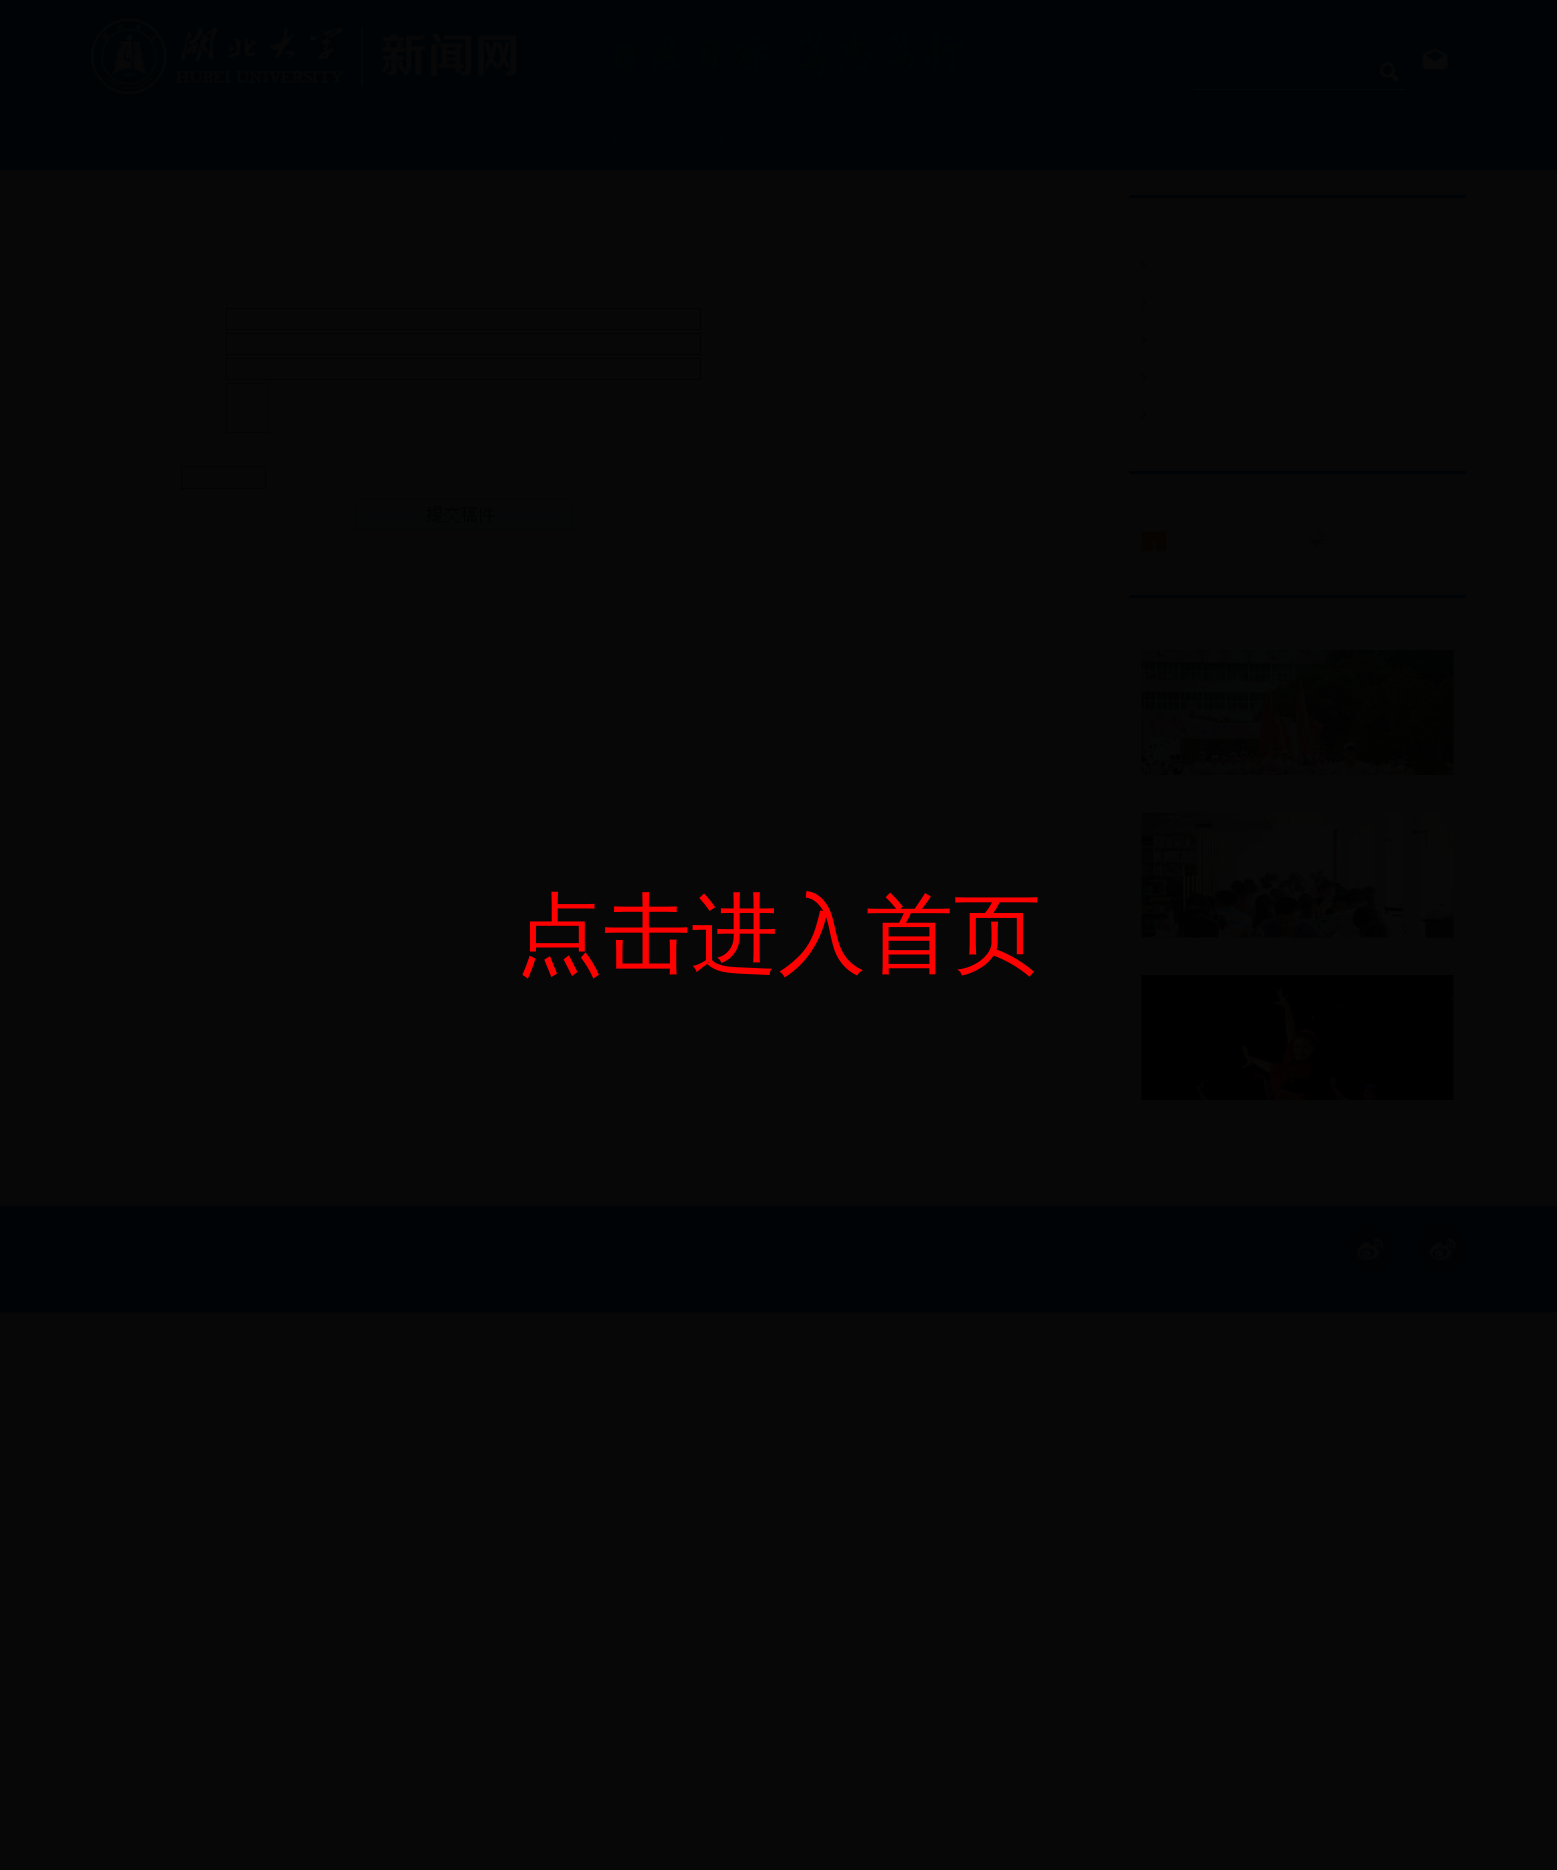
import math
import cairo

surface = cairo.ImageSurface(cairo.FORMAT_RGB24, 1557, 1870)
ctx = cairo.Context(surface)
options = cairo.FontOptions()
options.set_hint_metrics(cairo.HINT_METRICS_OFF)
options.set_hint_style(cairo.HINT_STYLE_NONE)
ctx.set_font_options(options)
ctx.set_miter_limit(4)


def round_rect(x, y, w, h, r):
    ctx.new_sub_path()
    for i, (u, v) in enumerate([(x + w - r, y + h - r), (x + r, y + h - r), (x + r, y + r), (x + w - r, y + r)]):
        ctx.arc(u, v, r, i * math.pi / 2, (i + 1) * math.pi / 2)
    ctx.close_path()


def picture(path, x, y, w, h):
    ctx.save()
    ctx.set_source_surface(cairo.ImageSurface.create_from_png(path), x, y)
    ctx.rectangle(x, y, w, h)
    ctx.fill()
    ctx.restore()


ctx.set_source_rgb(0.031, 0.031, 0.031)
ctx.paint()
picture("img1.png", 0, 0, 1557, 170)
picture("img2.png", 91, 18, 426, 76)
picture("img3.png", 613, 26, 350, 53)
picture("img4.png", 1422, 47, 26, 23)
ctx.set_source_rgb(0.031, 0.031, 0.031)
ctx.rectangle(1194, 89, 210, 1)
ctx.fill()
picture("img5.png", 1379, 62, 20, 20)
picture("img6.png", 195, 133, 2, 19)
picture("img7.png", 300, 133, 2, 19)
picture("img8.png", 405, 133, 2, 19)
picture("img9.png", 510, 133, 2, 19)
picture("img10.png", 615, 133, 2, 19)
picture("img6.png", 720, 133, 2, 19)
picture("img7.png", 825, 133, 2, 19)
picture("img8.png", 930, 133, 2, 19)
picture("img9.png", 1035, 133, 2, 19)
picture("img10.png", 1140, 133, 2, 19)
picture("img6.png", 1245, 133, 2, 19)
picture("img7.png", 1350, 133, 2, 19)
ctx.rectangle(226.5, 308.5, 474, 21)
ctx.set_source_rgb(0.012, 0.012, 0.012)
ctx.set_line_width(1)
ctx.stroke()
ctx.rectangle(226.5, 333.5, 474, 21)
ctx.stroke()
ctx.rectangle(226.5, 358.5, 474, 21)
ctx.stroke()
round_rect(226.5, 383.5, 42, 49, 2)
ctx.set_source_rgb(0.016, 0.016, 0.016)
ctx.stroke()
ctx.rectangle(181.5, 466.5, 84, 22)
ctx.set_source_rgb(0.012, 0.012, 0.012)
ctx.stroke()
picture("img11.png", 355, 498, 219, 32)
ctx.set_source_rgb(0, 0.012, 0.02)
ctx.rectangle(1129, 195, 337, 3)
ctx.fill()
picture("img12.png", 1141, 260, 6, 9)
picture("img13.png", 1141, 297, 6, 10)
picture("img12.png", 1141, 335, 6, 9)
picture("img13.png", 1141, 372, 6, 10)
picture("img12.png", 1141, 410, 6, 9)
ctx.rectangle(1129, 471, 337, 3)
ctx.fill()
picture("img14.png", 1141, 531, 26, 21)
picture("img15.png", 1306, 526, 21, 21)
ctx.rectangle(1129, 595, 337, 3)
ctx.fill()
picture("img16.png", 1141, 650, 313, 125)
picture("img17.png", 1141, 812, 313, 126)
picture("img18.png", 1141, 975, 313, 125)
ctx.select_font_face("WenQuanYi Zen Hei Medium")
ctx.set_font_size(87.5)
ctx.set_source_rgb(1, 0, 0)
ctx.move_to(516, 964)
ctx.show_text("点击进入首页")
picture("img19.png", 0, 1206, 1557, 107)
picture("img20.png", 1346, 1225, 48, 48)
picture("img21.png", 1418, 1225, 49, 48)
surface.write_to_png("page.png")
